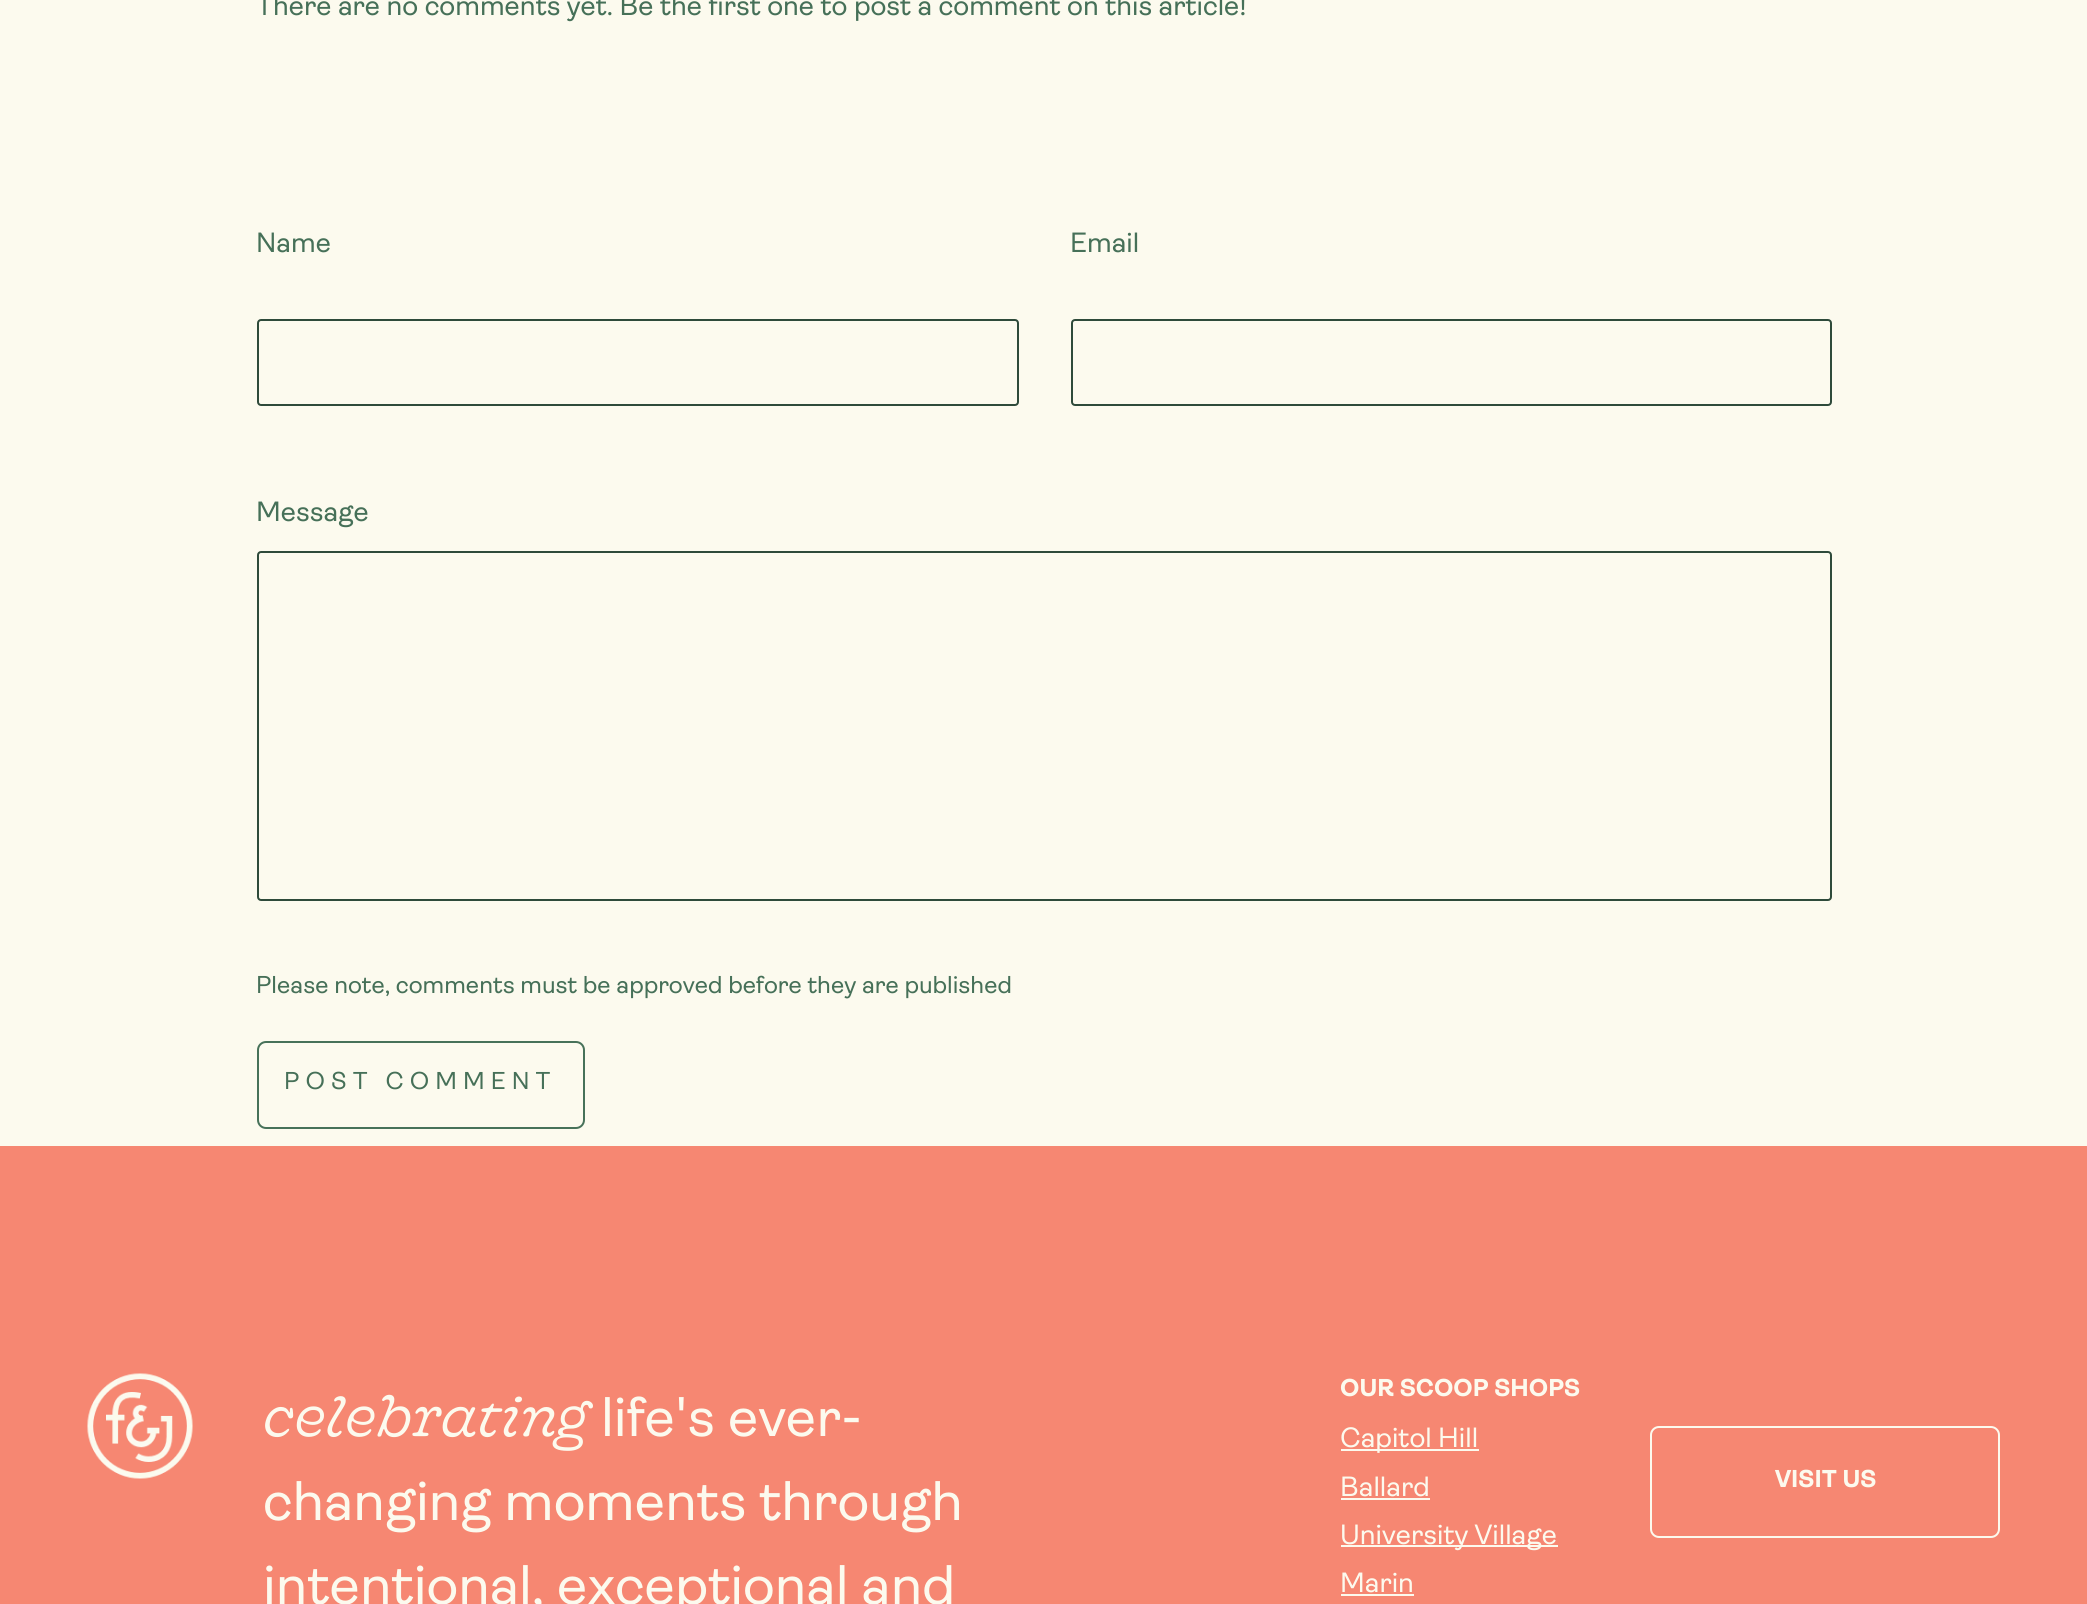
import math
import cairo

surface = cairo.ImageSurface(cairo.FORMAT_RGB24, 2087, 1604)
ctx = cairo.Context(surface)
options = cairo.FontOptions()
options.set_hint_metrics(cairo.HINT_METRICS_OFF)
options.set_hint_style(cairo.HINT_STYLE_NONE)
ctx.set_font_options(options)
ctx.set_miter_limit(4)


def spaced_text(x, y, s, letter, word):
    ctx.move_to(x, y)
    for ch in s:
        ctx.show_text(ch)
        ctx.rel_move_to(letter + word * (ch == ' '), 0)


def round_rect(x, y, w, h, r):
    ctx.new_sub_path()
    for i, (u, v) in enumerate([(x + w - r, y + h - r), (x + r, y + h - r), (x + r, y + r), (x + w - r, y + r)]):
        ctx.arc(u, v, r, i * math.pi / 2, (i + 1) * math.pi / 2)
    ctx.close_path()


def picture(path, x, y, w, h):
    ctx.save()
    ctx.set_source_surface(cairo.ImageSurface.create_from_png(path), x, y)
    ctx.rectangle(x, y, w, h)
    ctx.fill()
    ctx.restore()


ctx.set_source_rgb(0.988, 0.98, 0.933)
ctx.paint()
ctx.select_font_face("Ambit")
ctx.set_font_size(28)
ctx.set_source_rgb(0.275, 0.439, 0.345)
ctx.move_to(256, 15)
ctx.show_text("There are no comments yet. Be the first one to post a comment on this article!")
ctx.move_to(256, 252)
ctx.show_text("Name")
round_rect(258, 320, 760, 85, 3)
ctx.set_source_rgb(0.18, 0.29, 0.227)
ctx.stroke()
ctx.set_source_rgb(0.275, 0.439, 0.345)
ctx.move_to(1070, 252)
ctx.show_text("Email")
round_rect(1072, 320, 759, 85, 3)
ctx.set_source_rgb(0.18, 0.29, 0.227)
ctx.stroke()
ctx.set_source_rgb(0.275, 0.439, 0.345)
ctx.move_to(256, 521)
ctx.show_text("Message")
round_rect(258, 552, 1573, 348, 3)
ctx.set_source_rgb(0.18, 0.29, 0.227)
ctx.stroke()
ctx.set_font_size(24.5)
ctx.set_source_rgb(0.275, 0.439, 0.345)
ctx.move_to(256, 993)
ctx.show_text("Please note, comments must be approved before they are published")
round_rect(258, 1042, 326, 86, 8)
ctx.set_source_rgb(0.278, 0.443, 0.349)
ctx.stroke()
ctx.set_source_rgb(0.275, 0.439, 0.345)
spaced_text(284, 1089, "POST COMMENT", 6.1, 0)
ctx.set_source_rgb(0.961, 0.529, 0.447)
ctx.rectangle(0, 1146, 2087, 458)
ctx.fill()
picture("img1.png", 87, 1373, 106, 106)
ctx.select_font_face("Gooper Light", cairo.FONT_SLANT_ITALIC)
ctx.set_font_size(56)
ctx.set_source_rgb(0.988, 0.98, 0.933)
ctx.move_to(263, 1436)
ctx.show_text("celebrating")
ctx.select_font_face("Ambit")
ctx.move_to(601, 1436)
ctx.show_text("life's ever-")
ctx.move_to(263, 1520)
ctx.show_text("changing moments through")
ctx.move_to(263, 1604)
ctx.show_text("intentional, exceptional and")
ctx.select_font_face("Ambit", cairo.FONT_SLANT_NORMAL, cairo.FONT_WEIGHT_BOLD)
ctx.set_font_size(24.5)
ctx.move_to(1340, 1396)
ctx.show_text("OUR SCOOP SHOPS")
ctx.rectangle(1341, 1449, 138, 2)
ctx.fill()
ctx.select_font_face("Ambit")
ctx.set_font_size(28)
ctx.move_to(1340, 1447)
ctx.show_text("Capitol Hill")
ctx.move_to(1340, 1496)
ctx.show_text("Ballard")
ctx.rectangle(1341, 1498, 89, 2)
ctx.fill()
ctx.rectangle(1341, 1545, 217, 2)
ctx.fill()
ctx.move_to(1340, 1544)
ctx.show_text("University Village")
ctx.move_to(1340, 1592)
ctx.show_text("Marin")
ctx.rectangle(1341, 1594, 73, 2)
ctx.fill()
round_rect(1651, 1427, 348, 110, 8)
ctx.stroke()
ctx.select_font_face("Ambit", cairo.FONT_SLANT_NORMAL, cairo.FONT_WEIGHT_BOLD)
ctx.set_font_size(24.5)
ctx.move_to(1775, 1487)
ctx.show_text("VISIT US")
surface.write_to_png("page.png")
